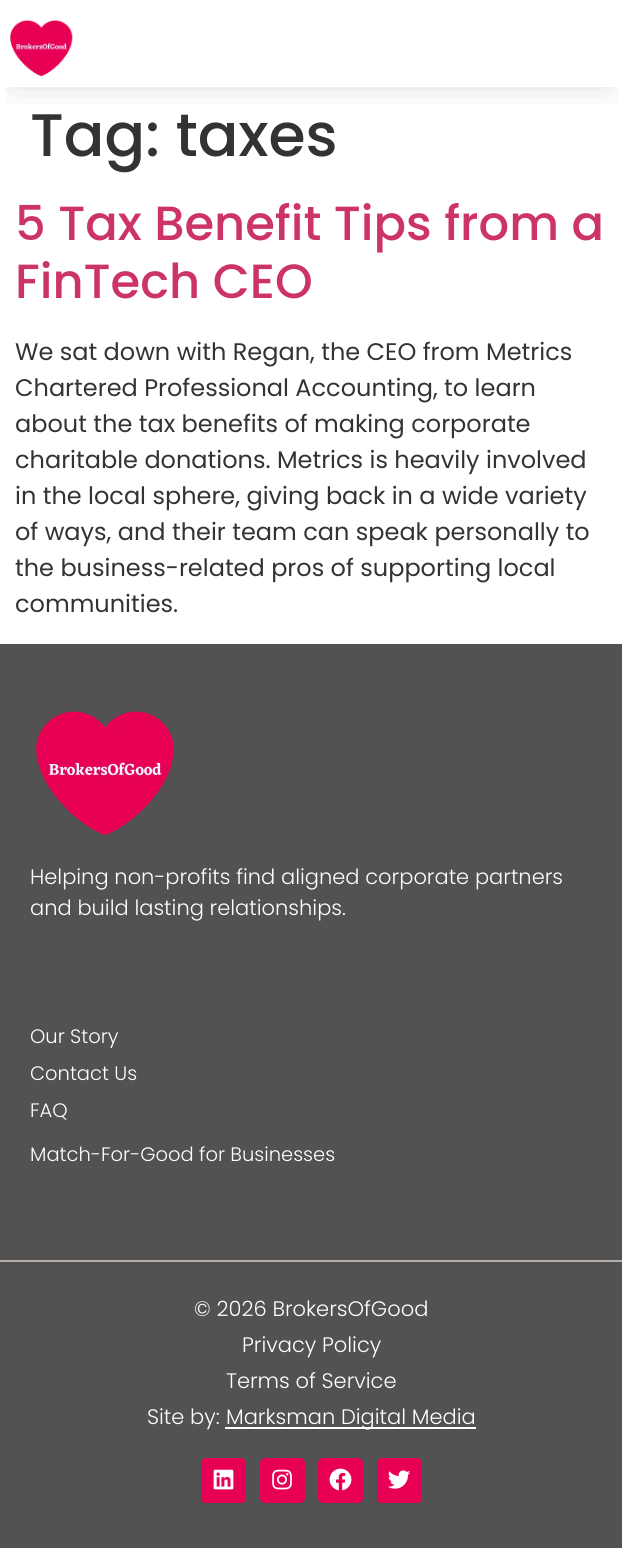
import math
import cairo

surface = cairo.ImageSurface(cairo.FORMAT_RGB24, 622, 1560)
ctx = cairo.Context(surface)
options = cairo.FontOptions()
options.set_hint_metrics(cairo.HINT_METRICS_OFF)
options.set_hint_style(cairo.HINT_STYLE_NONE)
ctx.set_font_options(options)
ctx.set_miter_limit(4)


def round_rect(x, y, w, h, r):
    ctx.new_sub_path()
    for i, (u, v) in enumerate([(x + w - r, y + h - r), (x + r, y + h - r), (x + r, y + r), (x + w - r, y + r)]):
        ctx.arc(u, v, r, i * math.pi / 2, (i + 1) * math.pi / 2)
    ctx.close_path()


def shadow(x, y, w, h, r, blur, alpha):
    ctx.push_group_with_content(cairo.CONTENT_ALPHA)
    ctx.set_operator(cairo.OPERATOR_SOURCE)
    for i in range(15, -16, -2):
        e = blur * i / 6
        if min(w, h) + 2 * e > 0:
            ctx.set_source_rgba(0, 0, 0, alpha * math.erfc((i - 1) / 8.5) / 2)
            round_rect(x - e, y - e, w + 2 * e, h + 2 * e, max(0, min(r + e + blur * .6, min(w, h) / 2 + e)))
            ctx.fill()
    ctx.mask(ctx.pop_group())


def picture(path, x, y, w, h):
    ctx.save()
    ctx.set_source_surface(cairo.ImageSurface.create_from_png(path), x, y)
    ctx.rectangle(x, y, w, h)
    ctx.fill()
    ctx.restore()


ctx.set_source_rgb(1, 1, 1)
ctx.paint()
ctx.save()
ctx.rectangle(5, 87, 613, 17)
ctx.clip()
ctx.set_source_rgb(0, 0, 0)
shadow(15, 15, 593, 57, 0, 22.5, 0.25)
ctx.restore()
picture("img1.png", 10, 20, 63, 57)
ctx.select_font_face("Poppins Medium")
ctx.set_font_size(60)
ctx.set_source_rgb(0.2, 0.2, 0.2)
ctx.move_to(30, 156)
ctx.show_text("Tag: taxes")
ctx.set_font_size(48)
ctx.set_source_rgb(0.8, 0.2, 0.4)
ctx.move_to(15, 240)
ctx.show_text("5 Tax Benefit Tips from a")
ctx.move_to(15, 298)
ctx.show_text("FinTech CEO")
ctx.select_font_face("Poppins")
ctx.set_font_size(24)
ctx.set_source_rgb(0.2, 0.2, 0.2)
ctx.move_to(15, 360)
ctx.show_text("We sat down with Regan, the CEO from Metrics")
ctx.move_to(15, 396)
ctx.show_text("Chartered Professional Accounting, to learn")
ctx.move_to(15, 432)
ctx.show_text("about the tax benefits of making corporate")
ctx.move_to(15, 468)
ctx.show_text("charitable donations. Metrics is heavily involved")
ctx.move_to(15, 504)
ctx.show_text("in the local sphere, giving back in a wide variety")
ctx.move_to(15, 540)
ctx.show_text("of ways, and their team can speak personally to")
ctx.move_to(15, 576)
ctx.show_text("the business-related pros of supporting local")
ctx.move_to(15, 612)
ctx.show_text("communities.")
ctx.set_source_rgb(0.322, 0.322, 0.322)
ctx.rectangle(0, 644, 622, 616)
ctx.fill()
picture("img2.png", 36, 711, 138, 124)
ctx.select_font_face("Poppins Light")
ctx.set_font_size(21)
ctx.set_source_rgb(1, 1, 1)
ctx.move_to(30, 884)
ctx.show_text("Helping non-profits find aligned corporate partners")
ctx.move_to(30, 915)
ctx.show_text("and build lasting relationships.")
ctx.set_font_size(19.5)
ctx.move_to(30, 1043)
ctx.show_text("Our Story")
ctx.move_to(30, 1080)
ctx.show_text("Contact Us")
ctx.move_to(30, 1117)
ctx.show_text("FAQ")
ctx.move_to(30, 1161)
ctx.show_text("Match-For-Good for Businesses")
ctx.set_source_rgb(0.322, 0.322, 0.322)
ctx.rectangle(0, 1262, 622, 286)
ctx.fill()
ctx.set_source_rgb(0.718, 0.686, 0.655)
ctx.rectangle(0, 1260, 622, 2)
ctx.fill()
ctx.set_font_size(21)
ctx.set_source_rgb(1, 1, 1)
ctx.move_to(194, 1316)
ctx.show_text("© 2026 BrokersOfGood")
ctx.move_to(242, 1352)
ctx.show_text("Privacy Policy")
ctx.move_to(226, 1388)
ctx.show_text("Terms of Service")
ctx.move_to(147, 1424)
ctx.show_text("Site by:")
ctx.rectangle(225, 1427, 251, 2)
ctx.fill()
ctx.move_to(226, 1424)
ctx.show_text("Marksman Digital Media")
ctx.set_source_rgb(0.91, 0, 0.333)
round_rect(201, 1458, 45, 45, 5)
ctx.fill()
picture("img3.png", 213, 1469, 21, 21)
round_rect(260, 1458, 45, 45, 5)
ctx.fill()
picture("img4.png", 272, 1469, 20, 21)
round_rect(318, 1458, 45, 45, 5)
ctx.fill()
picture("img5.png", 329, 1468, 23, 23)
round_rect(377, 1458, 45, 45, 5)
ctx.fill()
picture("img6.png", 388, 1470, 23, 19)
surface.write_to_png("page.png")
